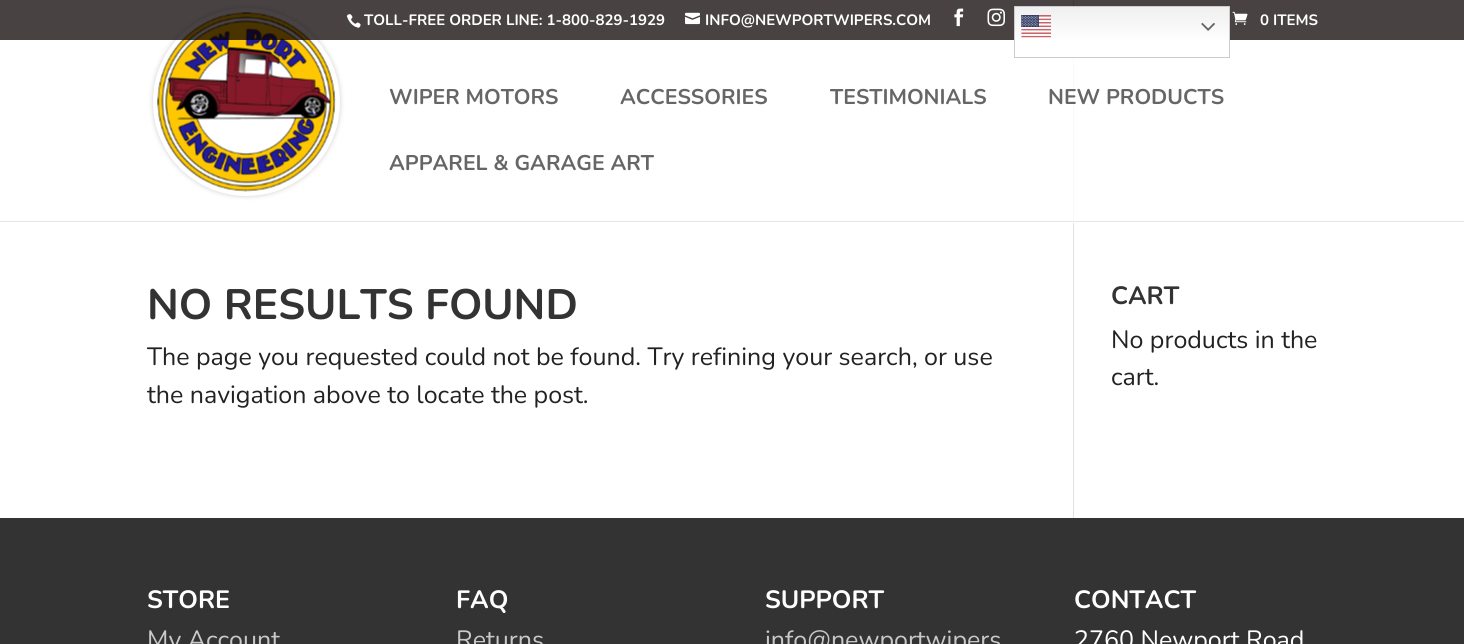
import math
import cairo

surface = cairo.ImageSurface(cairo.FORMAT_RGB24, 1464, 644)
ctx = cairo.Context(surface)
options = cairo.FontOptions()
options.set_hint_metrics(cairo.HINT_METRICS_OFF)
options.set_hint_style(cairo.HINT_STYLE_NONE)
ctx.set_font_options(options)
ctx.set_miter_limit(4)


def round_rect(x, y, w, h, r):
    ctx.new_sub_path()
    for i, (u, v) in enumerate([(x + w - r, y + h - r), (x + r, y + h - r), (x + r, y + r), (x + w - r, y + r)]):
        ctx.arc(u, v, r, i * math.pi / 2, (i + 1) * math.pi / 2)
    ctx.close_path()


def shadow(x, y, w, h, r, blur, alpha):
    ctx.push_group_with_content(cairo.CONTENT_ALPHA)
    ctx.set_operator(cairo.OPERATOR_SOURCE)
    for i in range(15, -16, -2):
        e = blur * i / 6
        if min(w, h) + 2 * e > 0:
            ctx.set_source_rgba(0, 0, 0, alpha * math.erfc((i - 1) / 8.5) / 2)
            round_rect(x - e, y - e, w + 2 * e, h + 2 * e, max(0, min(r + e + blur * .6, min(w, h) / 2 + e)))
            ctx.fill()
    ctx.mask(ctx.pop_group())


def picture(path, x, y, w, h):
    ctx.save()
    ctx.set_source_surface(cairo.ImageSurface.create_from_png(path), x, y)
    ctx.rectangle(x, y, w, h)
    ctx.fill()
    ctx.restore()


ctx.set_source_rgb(1, 1, 1)
ctx.paint()
ctx.set_source_rgb(0.902, 0.902, 0.902)
ctx.rectangle(0, 221, 1464, 1)
ctx.fill()
ctx.set_source_rgb(0, 0, 0)
shadow(153, 8, 187, 188, 93.5, 2.5, 0.2)
ctx.set_source_rgb(1, 1, 1)
round_rect(153, 8, 187, 188, 93.5)
ctx.fill()
picture("img8.png", 157, 12, 179, 180)
ctx.set_source_rgb(0.886, 0.886, 0.886)
ctx.rectangle(1073, 0, 1, 518)
ctx.fill()
ctx.set_source_rgba(0.039, 0, 0, 0.74)
ctx.rectangle(0, 0, 1464, 40)
ctx.fill()
picture("img1.png", 346, 14, 15, 14)
ctx.select_font_face("Nunito", cairo.FONT_SLANT_NORMAL, cairo.FONT_WEIGHT_BOLD)
ctx.set_font_size(15)
ctx.set_source_rgb(1, 1, 1)
ctx.move_to(364, 25)
ctx.show_text("TOLL-FREE ORDER LINE: 1-800-829-1929")
picture("img2.png", 685, 12, 15, 13)
ctx.move_to(705, 25)
ctx.show_text("INFO@NEWPORTWIPERS.COM")
picture("img3.png", 954, 8, 10, 19)
picture("img4.png", 987, 8, 18, 19)
gradient = cairo.LinearGradient(1122, 6.2, 1122, 58)
gradient.add_color_stop_rgba(0, 0.937, 0.937, 0.937, 1)
gradient.add_color_stop_rgba(0.7, 1, 1, 1, 1)
ctx.set_source(gradient)
ctx.rectangle(1015, 7, 214, 50)
ctx.fill()
ctx.rectangle(1014.5, 6.5, 215, 51)
ctx.set_source_rgb(0.8, 0.8, 0.8)
ctx.set_line_width(1)
ctx.stroke()
picture("img5.png", 1021, 15, 30, 23)
picture("img6.png", 1201, 22, 14, 9)
picture("img7.png", 1232, 11, 16, 14)
ctx.set_source_rgb(1, 1, 1)
ctx.move_to(1260, 25)
ctx.show_text("0 ITEMS")
ctx.set_font_size(21.25)
ctx.set_source_rgb(0.4, 0.4, 0.4)
ctx.move_to(389, 104)
ctx.show_text("WIPER MOTORS")
ctx.move_to(620, 104)
ctx.show_text("ACCESSORIES")
ctx.move_to(830, 104)
ctx.show_text("TESTIMONIALS")
ctx.set_source_rgb(0.98, 0.98, 0.98)
ctx.rectangle(1073, 58, 1, 165)
ctx.fill()
ctx.set_source_rgb(0.4, 0.4, 0.4)
ctx.move_to(1048, 104)
ctx.show_text("NEW PRODUCTS")
ctx.move_to(389, 170)
ctx.show_text("APPAREL & GARAGE ART")
ctx.set_source_rgb(0.882, 0.882, 0.882)
ctx.rectangle(1073, 221, 1, 1)
ctx.fill()
ctx.set_font_size(42.5)
ctx.set_source_rgb(0.2, 0.2, 0.2)
ctx.move_to(147, 319)
ctx.show_text("NO RESULTS FOUND")
ctx.select_font_face("Nunito")
ctx.set_font_size(25)
ctx.set_source_rgb(0.133, 0.133, 0.133)
ctx.move_to(147, 365)
ctx.show_text("The page you requested could not be found. Try refining your search, or use")
ctx.move_to(147, 403)
ctx.show_text("the navigation above to locate the post.")
ctx.select_font_face("Nunito", cairo.FONT_SLANT_NORMAL, cairo.FONT_WEIGHT_BOLD)
ctx.set_source_rgb(0.2, 0.2, 0.2)
ctx.move_to(1111, 304)
ctx.show_text("CART")
ctx.select_font_face("Nunito")
ctx.set_source_rgb(0.133, 0.133, 0.133)
ctx.move_to(1111, 348)
ctx.show_text("No products in the")
ctx.move_to(1111, 385)
ctx.show_text("cart.")
ctx.set_source_rgb(0.2, 0.2, 0.2)
ctx.rectangle(0, 518, 1464, 126)
ctx.fill()
ctx.select_font_face("Nunito", cairo.FONT_SLANT_NORMAL, cairo.FONT_WEIGHT_BOLD)
ctx.set_source_rgb(1, 1, 1)
ctx.move_to(147, 608)
ctx.show_text("STORE")
ctx.select_font_face("Nunito")
ctx.set_source_rgb(0.788, 0.788, 0.788)
ctx.move_to(147, 648)
ctx.show_text("My Account")
ctx.select_font_face("Nunito", cairo.FONT_SLANT_NORMAL, cairo.FONT_WEIGHT_BOLD)
ctx.set_source_rgb(1, 1, 1)
ctx.move_to(456, 608)
ctx.show_text("FAQ")
ctx.select_font_face("Nunito")
ctx.set_source_rgb(0.788, 0.788, 0.788)
ctx.move_to(456, 648)
ctx.show_text("Returns")
ctx.select_font_face("Nunito", cairo.FONT_SLANT_NORMAL, cairo.FONT_WEIGHT_BOLD)
ctx.set_source_rgb(1, 1, 1)
ctx.move_to(765, 608)
ctx.show_text("SUPPORT")
ctx.select_font_face("Nunito")
ctx.set_source_rgb(0.788, 0.788, 0.788)
ctx.move_to(765, 648)
ctx.show_text("info@newportwipers")
ctx.select_font_face("Nunito", cairo.FONT_SLANT_NORMAL, cairo.FONT_WEIGHT_BOLD)
ctx.set_source_rgb(1, 1, 1)
ctx.move_to(1074, 608)
ctx.show_text("CONTACT")
ctx.select_font_face("Nunito")
ctx.move_to(1074, 648)
ctx.show_text("2760 Newport Road")
surface.write_to_png("page.png")
